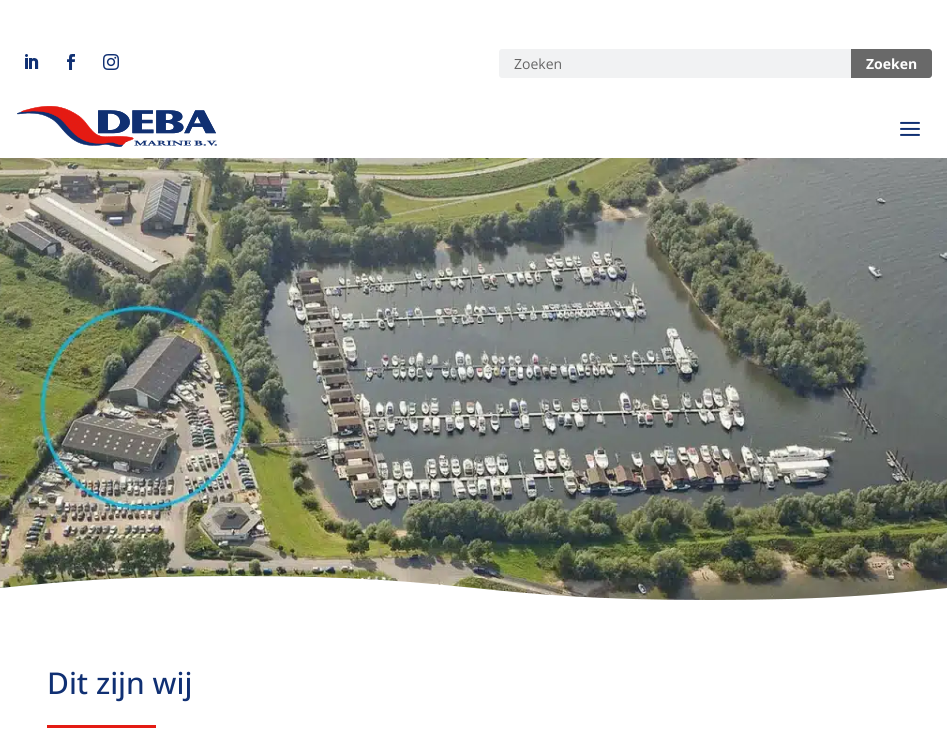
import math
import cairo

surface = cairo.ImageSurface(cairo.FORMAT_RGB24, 947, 738)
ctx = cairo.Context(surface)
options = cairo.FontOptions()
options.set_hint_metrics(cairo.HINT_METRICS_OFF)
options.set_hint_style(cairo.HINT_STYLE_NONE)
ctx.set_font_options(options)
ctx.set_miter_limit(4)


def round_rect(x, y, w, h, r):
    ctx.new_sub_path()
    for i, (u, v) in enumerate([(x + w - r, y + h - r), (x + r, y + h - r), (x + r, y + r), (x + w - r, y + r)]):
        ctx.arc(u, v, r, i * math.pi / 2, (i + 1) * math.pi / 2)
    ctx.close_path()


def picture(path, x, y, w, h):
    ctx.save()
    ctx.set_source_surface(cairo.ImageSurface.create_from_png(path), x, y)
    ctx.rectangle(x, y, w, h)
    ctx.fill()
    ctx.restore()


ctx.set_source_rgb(1, 1, 1)
ctx.paint()
picture("img1.png", 25, 54, 14, 15)
picture("img2.png", 67, 54, 8, 16)
picture("img3.png", 103, 54, 16, 16)
ctx.set_source_rgb(0.945, 0.949, 0.953)
round_rect(499, 49, 433, 29, 3)
ctx.fill()
ctx.select_font_face("Open Sans")
ctx.set_font_size(14)
ctx.set_source_rgb(0.4, 0.4, 0.4)
ctx.move_to(514, 69)
ctx.show_text("Zoeken")
ctx.set_source_rgb(0.412, 0.412, 0.412)
ctx.new_path()
ctx.move_to(851, 49)
ctx.line_to(929, 49)
ctx.curve_to(930.5, 49, 932, 50.5, 932, 52)
ctx.line_to(932, 75)
ctx.curve_to(932, 76.5, 930.5, 78, 929, 78)
ctx.line_to(851, 78)
ctx.close_path()
ctx.fill()
ctx.select_font_face("Open Sans", cairo.FONT_SLANT_NORMAL, cairo.FONT_WEIGHT_BOLD)
ctx.set_source_rgb(1, 1, 1)
ctx.move_to(866, 69)
ctx.show_text("Zoeken")
picture("img4.png", 17, 106, 200, 41)
picture("img5.png", 900, 121, 20, 15)
picture("img6.png", 0, 158, 947, 442)
ctx.new_path()
ctx.move_to(237, 576)
ctx.curve_to(474, 576, 474, 600, 710, 600)
ctx.curve_to(829, 600, 888, 594, 947, 588)
ctx.line_to(947, 608)
ctx.line_to(0, 608)
ctx.line_to(0, 588)
ctx.curve_to(59, 582, 118, 576, 237, 576)
ctx.close_path()
ctx.fill()
ctx.select_font_face("Open Sans Medium")
ctx.set_font_size(30)
ctx.set_source_rgb(0.063, 0.188, 0.451)
ctx.move_to(47, 694)
ctx.show_text("Dit zijn wij")
ctx.set_source_rgb(0.894, 0.106, 0.075)
ctx.rectangle(47, 725, 109, 3)
ctx.fill()
surface.write_to_png("page.png")
